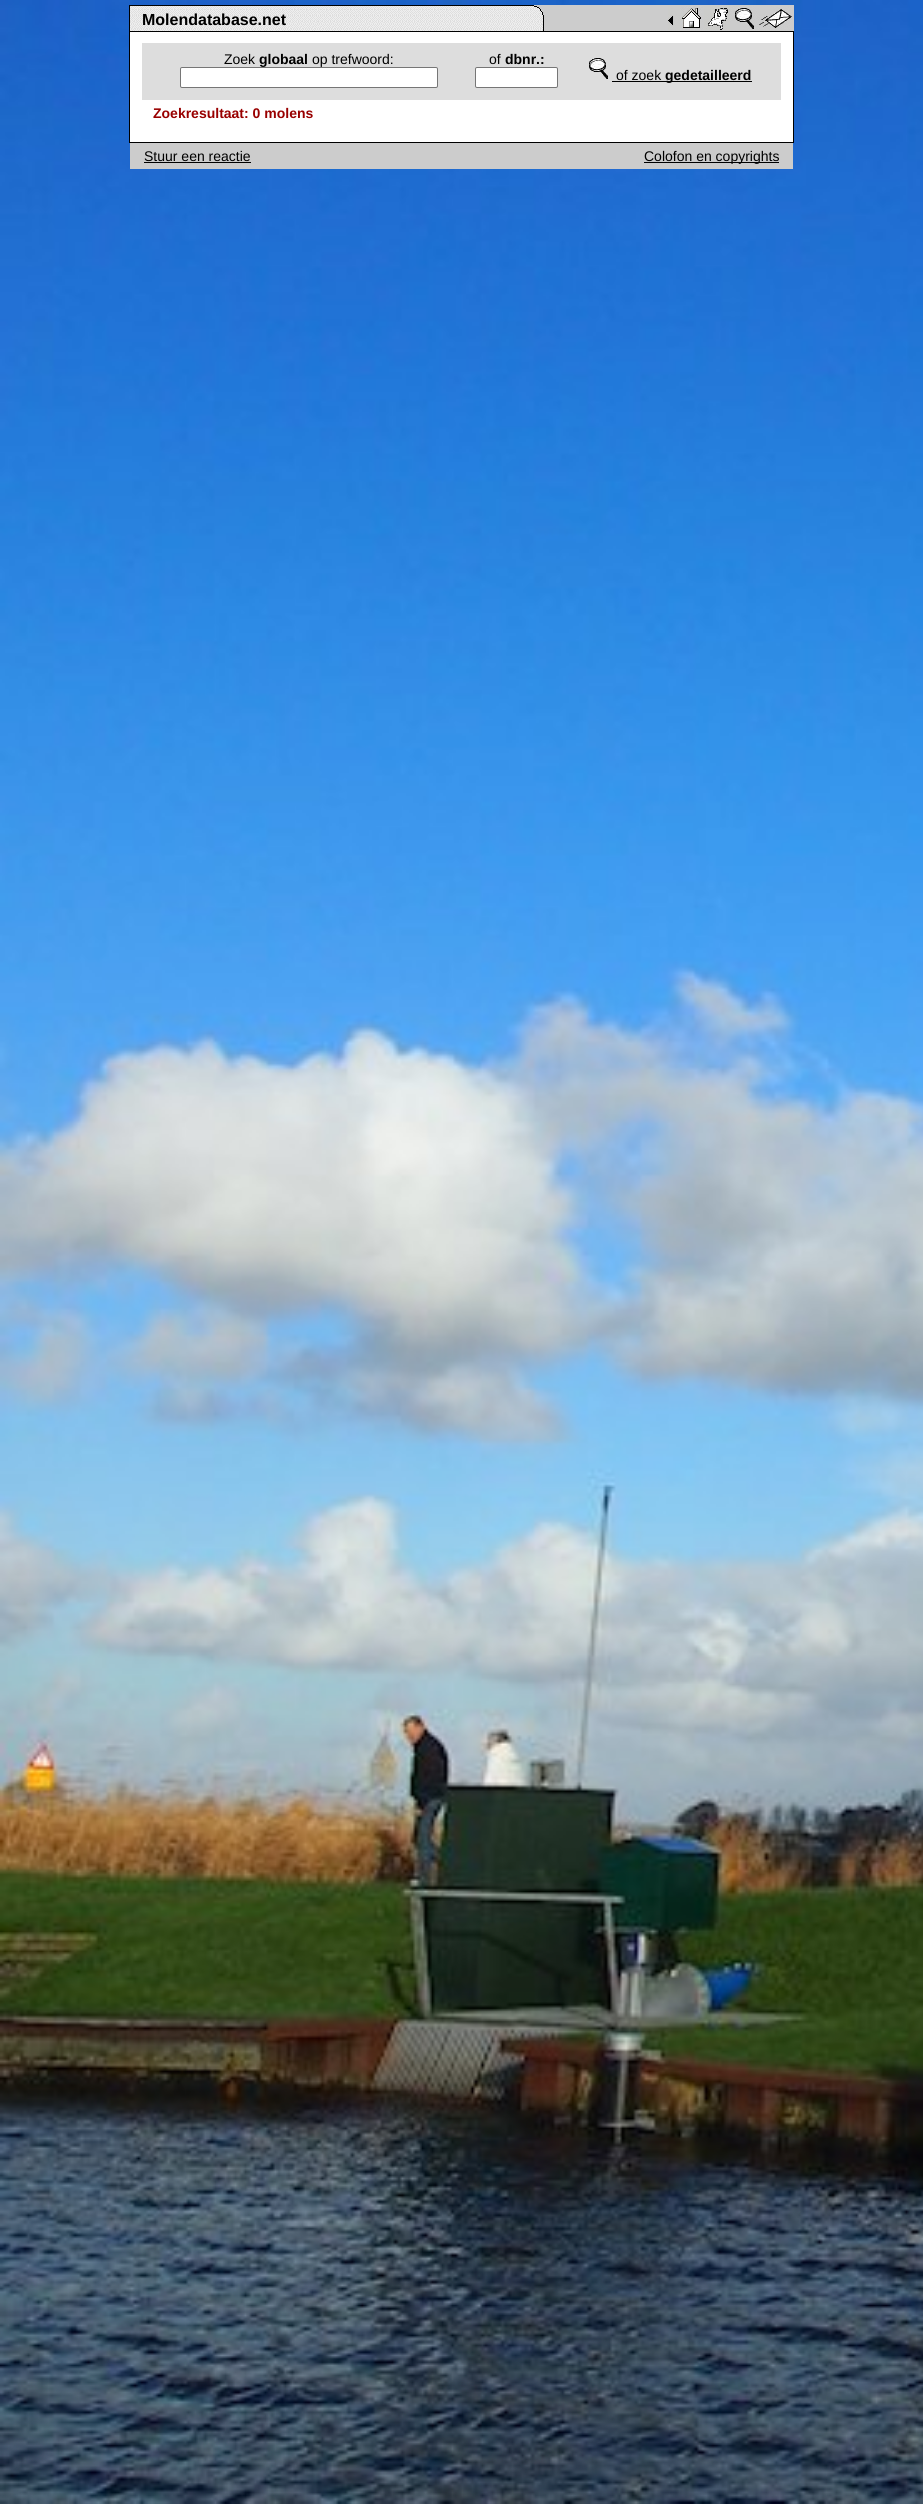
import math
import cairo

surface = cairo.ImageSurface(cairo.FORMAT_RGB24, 923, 2504)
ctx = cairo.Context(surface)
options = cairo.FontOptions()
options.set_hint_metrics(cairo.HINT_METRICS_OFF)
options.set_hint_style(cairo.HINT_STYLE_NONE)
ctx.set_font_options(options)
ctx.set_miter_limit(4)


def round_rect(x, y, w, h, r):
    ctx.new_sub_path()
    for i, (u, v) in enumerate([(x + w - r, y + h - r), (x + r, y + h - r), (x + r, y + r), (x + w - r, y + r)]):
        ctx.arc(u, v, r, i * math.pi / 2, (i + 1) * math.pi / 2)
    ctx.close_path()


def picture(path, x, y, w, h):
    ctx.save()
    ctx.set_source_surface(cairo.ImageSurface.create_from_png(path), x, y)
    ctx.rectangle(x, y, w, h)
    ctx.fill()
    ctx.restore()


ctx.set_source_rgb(1, 1, 1)
ctx.paint()
picture("img1.png", 0, 0, 923, 2504)
ctx.set_source_rgb(0.8, 0.8, 0.8)
ctx.rectangle(534, 5, 260, 26)
ctx.fill()
picture("img2.png", 129, 5, 415, 26)
ctx.select_font_face("Liberation Sans", cairo.FONT_SLANT_NORMAL, cairo.FONT_WEIGHT_BOLD)
ctx.set_font_size(16)
ctx.set_source_rgb(0, 0, 0)
ctx.move_to(142, 25)
ctx.show_text("Molendatabase.net")
picture("img3.png", 668, 6, 124, 24)
ctx.rectangle(129.5, 31.5, 664, 111)
ctx.set_line_width(1)
ctx.stroke()
ctx.set_source_rgb(1, 1, 1)
ctx.rectangle(130, 32, 663, 110)
ctx.fill()
ctx.set_source_rgb(0.867, 0.867, 0.867)
ctx.rectangle(142, 43, 639, 57)
ctx.fill()
ctx.select_font_face("Liberation Sans")
ctx.set_font_size(14)
ctx.set_source_rgb(0, 0, 0)
ctx.move_to(224, 64)
ctx.show_text("Zoek")
ctx.select_font_face("Liberation Sans", cairo.FONT_SLANT_NORMAL, cairo.FONT_WEIGHT_BOLD)
ctx.move_to(259, 64)
ctx.show_text("globaal")
ctx.select_font_face("Liberation Sans")
ctx.move_to(312, 64)
ctx.show_text("op trefwoord:")
ctx.set_source_rgb(1, 1, 1)
round_rect(180.5, 67.5, 257, 20, 1.5)
ctx.fill_preserve()
ctx.set_source_rgb(0.463, 0.463, 0.463)
ctx.stroke()
ctx.set_source_rgb(0, 0, 0)
ctx.move_to(489, 64)
ctx.show_text("of")
ctx.select_font_face("Liberation Sans", cairo.FONT_SLANT_NORMAL, cairo.FONT_WEIGHT_BOLD)
ctx.move_to(505, 64)
ctx.show_text("dbnr.:")
ctx.set_source_rgb(1, 1, 1)
round_rect(475.5, 67.5, 82, 20, 1.5)
ctx.fill_preserve()
ctx.set_source_rgb(0.463, 0.463, 0.463)
ctx.stroke()
picture("img4.png", 589, 58, 19, 21)
ctx.select_font_face("Liberation Sans")
ctx.set_source_rgb(0, 0, 0)
ctx.move_to(616, 80)
ctx.show_text("of zoek")
ctx.rectangle(612, 81, 140, 1)
ctx.fill()
ctx.select_font_face("Liberation Sans", cairo.FONT_SLANT_NORMAL, cairo.FONT_WEIGHT_BOLD)
ctx.move_to(665, 80)
ctx.show_text("gedetailleerd")
ctx.set_source_rgb(0.6, 0, 0)
ctx.move_to(153, 118)
ctx.show_text("Zoekresultaat: 0 molens")
ctx.set_source_rgb(0.8, 0.8, 0.8)
ctx.rectangle(130, 143, 663, 26)
ctx.fill()
ctx.select_font_face("Liberation Sans")
ctx.set_source_rgb(0, 0, 0)
ctx.move_to(144, 161)
ctx.show_text("Stuur een reactie")
ctx.rectangle(144, 162, 107, 1)
ctx.fill()
ctx.rectangle(644, 162, 135, 1)
ctx.fill()
ctx.move_to(644, 161)
ctx.show_text("Colofon en copyrights")
surface.write_to_png("page.png")
